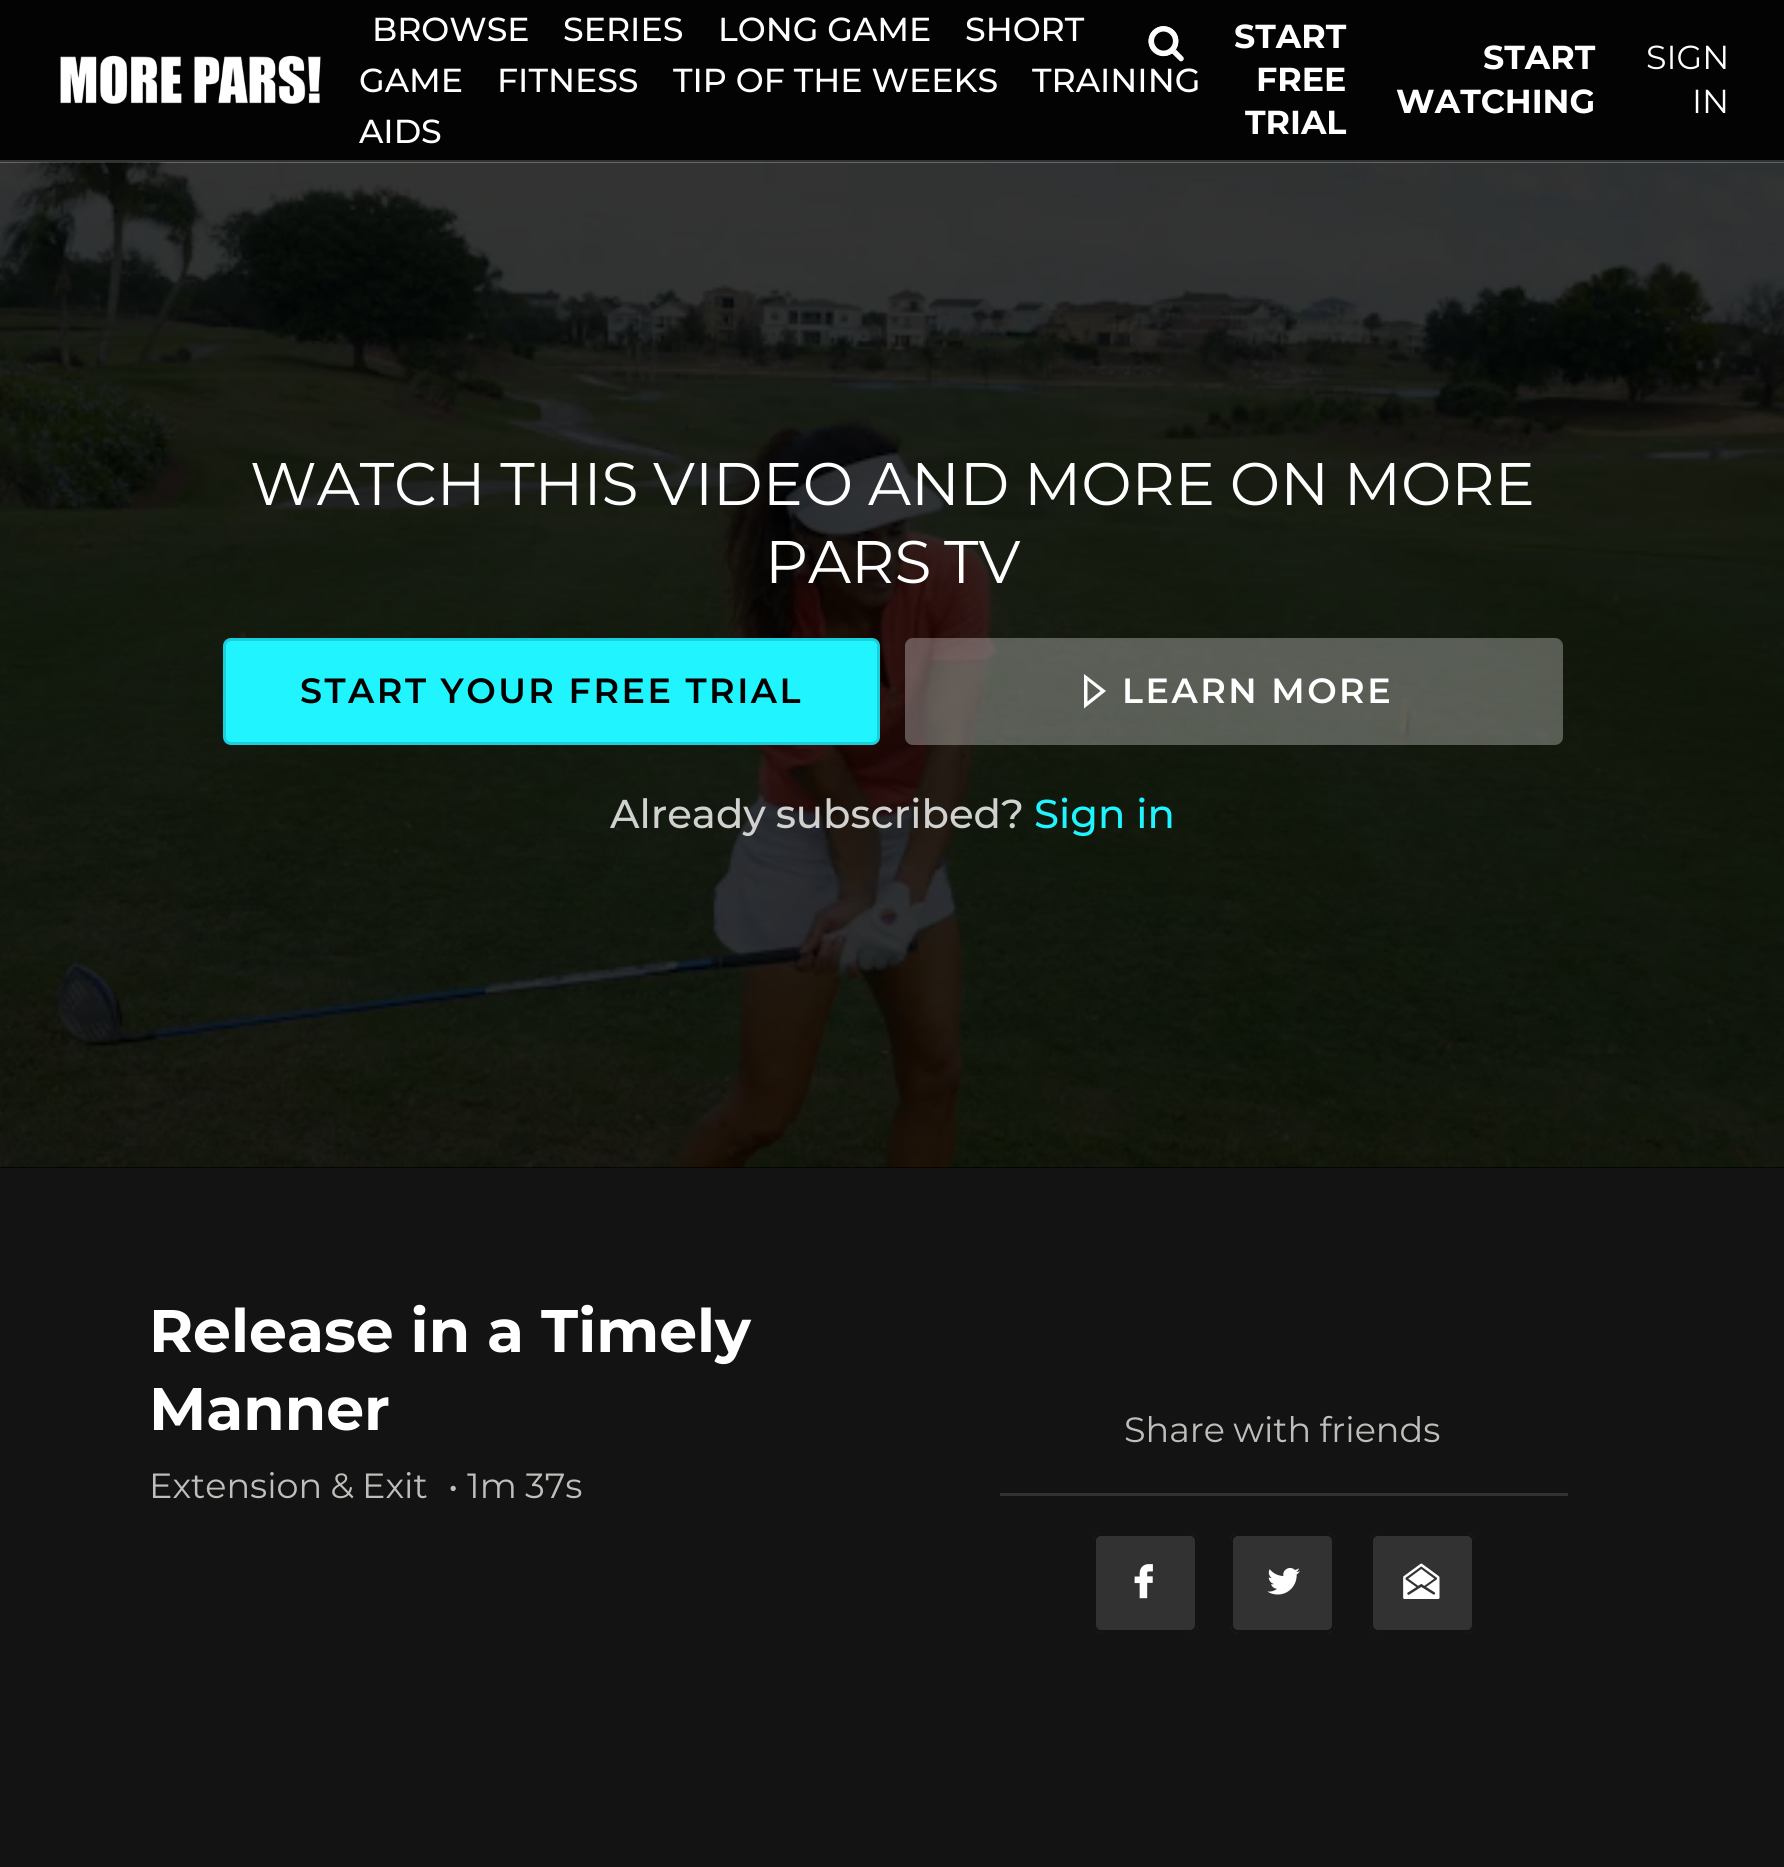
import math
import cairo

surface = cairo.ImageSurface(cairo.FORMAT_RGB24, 1784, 1867)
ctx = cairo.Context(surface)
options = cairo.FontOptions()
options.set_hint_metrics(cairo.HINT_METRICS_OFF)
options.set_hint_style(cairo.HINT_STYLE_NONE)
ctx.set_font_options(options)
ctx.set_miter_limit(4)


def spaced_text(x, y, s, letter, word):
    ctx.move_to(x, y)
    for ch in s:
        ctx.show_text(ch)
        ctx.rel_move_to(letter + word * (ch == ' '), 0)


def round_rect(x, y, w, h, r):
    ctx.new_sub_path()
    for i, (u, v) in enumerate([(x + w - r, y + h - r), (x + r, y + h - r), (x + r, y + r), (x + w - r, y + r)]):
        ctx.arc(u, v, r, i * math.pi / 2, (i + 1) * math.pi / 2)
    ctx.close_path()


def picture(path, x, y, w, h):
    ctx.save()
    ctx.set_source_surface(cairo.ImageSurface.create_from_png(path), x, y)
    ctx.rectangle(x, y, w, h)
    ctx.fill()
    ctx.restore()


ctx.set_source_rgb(0.078, 0.078, 0.078)
ctx.paint()
ctx.set_source_rgb(0.012, 0.012, 0.012)
ctx.rectangle(0, 0, 1784, 160)
ctx.fill()
ctx.set_source_rgb(0.196, 0.196, 0.196)
ctx.rectangle(0, 160, 1784, 3)
ctx.fill()
picture("img1.png", 60, 55, 261, 49)
ctx.select_font_face("Montserrat Medium")
ctx.set_font_size(33.25)
ctx.set_source_rgb(1, 1, 1)
ctx.move_to(372, 41)
ctx.show_text("BROWSE")
ctx.move_to(563, 41)
ctx.show_text("SERIES")
ctx.move_to(718, 41)
ctx.show_text("LONG GAME")
ctx.move_to(965, 41)
ctx.show_text("SHORT")
ctx.move_to(359, 92)
ctx.show_text("GAME")
ctx.move_to(497, 92)
ctx.show_text("FITNESS")
ctx.move_to(673, 92)
ctx.show_text("TIP OF THE WEEKS")
ctx.move_to(1032, 92)
ctx.show_text("TRAINING")
ctx.move_to(359, 143)
ctx.show_text("AIDS")
picture("img2.png", 1148, 26, 36, 36)
ctx.select_font_face("Montserrat", cairo.FONT_SLANT_NORMAL, cairo.FONT_WEIGHT_BOLD)
ctx.move_to(1234, 48)
ctx.show_text("START")
ctx.move_to(1256, 91)
ctx.show_text("FREE")
ctx.move_to(1245, 134)
ctx.show_text("TRIAL")
ctx.move_to(1483, 69)
ctx.show_text("START")
ctx.move_to(1396, 113)
ctx.show_text("WATCHING")
ctx.select_font_face("Montserrat")
ctx.move_to(1646, 69)
ctx.show_text("SIGN")
ctx.move_to(1692, 113)
ctx.show_text("IN")
ctx.set_source_rgb(0, 0, 0)
ctx.rectangle(0, 1167, 1784, 1)
ctx.fill()
picture("img3.png", 0, 162, 1784, 1006)
ctx.set_font_size(60)
ctx.set_source_rgb(1, 1, 1)
spaced_text(250, 505, "WATCH THIS VIDEO AND MORE ON MORE", 0, -1)
spaced_text(765, 583, "PARS TV", 0, -3)
ctx.set_source_rgb(0.122, 0.957, 1)
round_rect(224.5, 639.5, 654, 104, 6.5)
ctx.fill_preserve()
ctx.set_source_rgb(0.102, 0.812, 0.851)
ctx.set_line_width(3)
ctx.stroke()
ctx.select_font_face("Montserrat SemiBold")
ctx.set_font_size(35)
ctx.set_source_rgb(0, 0, 0)
spaced_text(300, 703, "START YOUR FREE TRIAL", 2.5, 0)
ctx.set_source_rgba(1, 1, 1, 0.3)
round_rect(905, 638, 658, 107, 8)
ctx.fill()
ctx.set_source_rgb(1, 1, 1)
ctx.new_path()
ctx.move_to(1084, 708.5)
ctx.line_to(1084, 674)
ctx.line_to(1106, 691)
ctx.close_path()
ctx.move_to(1087.5, 680.5)
ctx.line_to(1087.5, 701.5)
ctx.line_to(1100.5, 691)
ctx.close_path()
ctx.fill()
spaced_text(1122, 703, "LEARN MORE", 2.5, 0)
ctx.select_font_face("Montserrat Medium")
ctx.set_font_size(40.25)
ctx.set_source_rgb(0.82, 0.82, 0.816)
spaced_text(610, 828, "Already subscribed?", 0, -1)
ctx.set_source_rgb(0.122, 0.957, 1)
ctx.move_to(1034, 828)
ctx.show_text("Sign in")
ctx.select_font_face("Montserrat", cairo.FONT_SLANT_NORMAL, cairo.FONT_WEIGHT_BOLD)
ctx.set_font_size(60)
ctx.set_source_rgb(1, 1, 1)
ctx.move_to(149, 1352)
ctx.show_text("Release in a Timely")
ctx.move_to(149, 1430)
ctx.show_text("Manner")
ctx.select_font_face("Montserrat")
ctx.set_font_size(35)
ctx.set_source_rgb(0.745, 0.745, 0.733)
spaced_text(149, 1498, "Extension & Exit", 0, -1)
ctx.move_to(448, 1498)
ctx.show_text("•")
spaced_text(467, 1498, "1m 37s", 0, -1)
ctx.set_source_rgb(0.196, 0.196, 0.196)
ctx.rectangle(1000, 1493, 568, 3)
ctx.fill()
ctx.set_source_rgb(0.745, 0.745, 0.733)
spaced_text(1124, 1442, "Share with friends", 0, -1)
ctx.set_source_rgb(0.196, 0.196, 0.196)
round_rect(1093, 1533, 105, 100, 8)
ctx.fill()
picture("img4.png", 1134, 1564, 19, 35)
round_rect(1094.5, 1534.5, 102, 97, 6.5)
ctx.set_source_rgb(0.078, 0.078, 0.078)
ctx.stroke()
ctx.set_source_rgb(0.196, 0.196, 0.196)
round_rect(1230, 1533, 105, 100, 8)
ctx.fill()
picture("img5.png", 1267, 1567, 33, 28)
round_rect(1231.5, 1534.5, 102, 97, 6.5)
ctx.set_source_rgb(0.078, 0.078, 0.078)
ctx.stroke()
ctx.set_source_rgb(0.196, 0.196, 0.196)
round_rect(1370, 1533, 105, 100, 8)
ctx.fill()
picture("img6.png", 1403, 1563, 37, 36)
round_rect(1371.5, 1534.5, 102, 97, 6.5)
ctx.set_source_rgb(0.078, 0.078, 0.078)
ctx.stroke()
surface.write_to_png("page.png")
